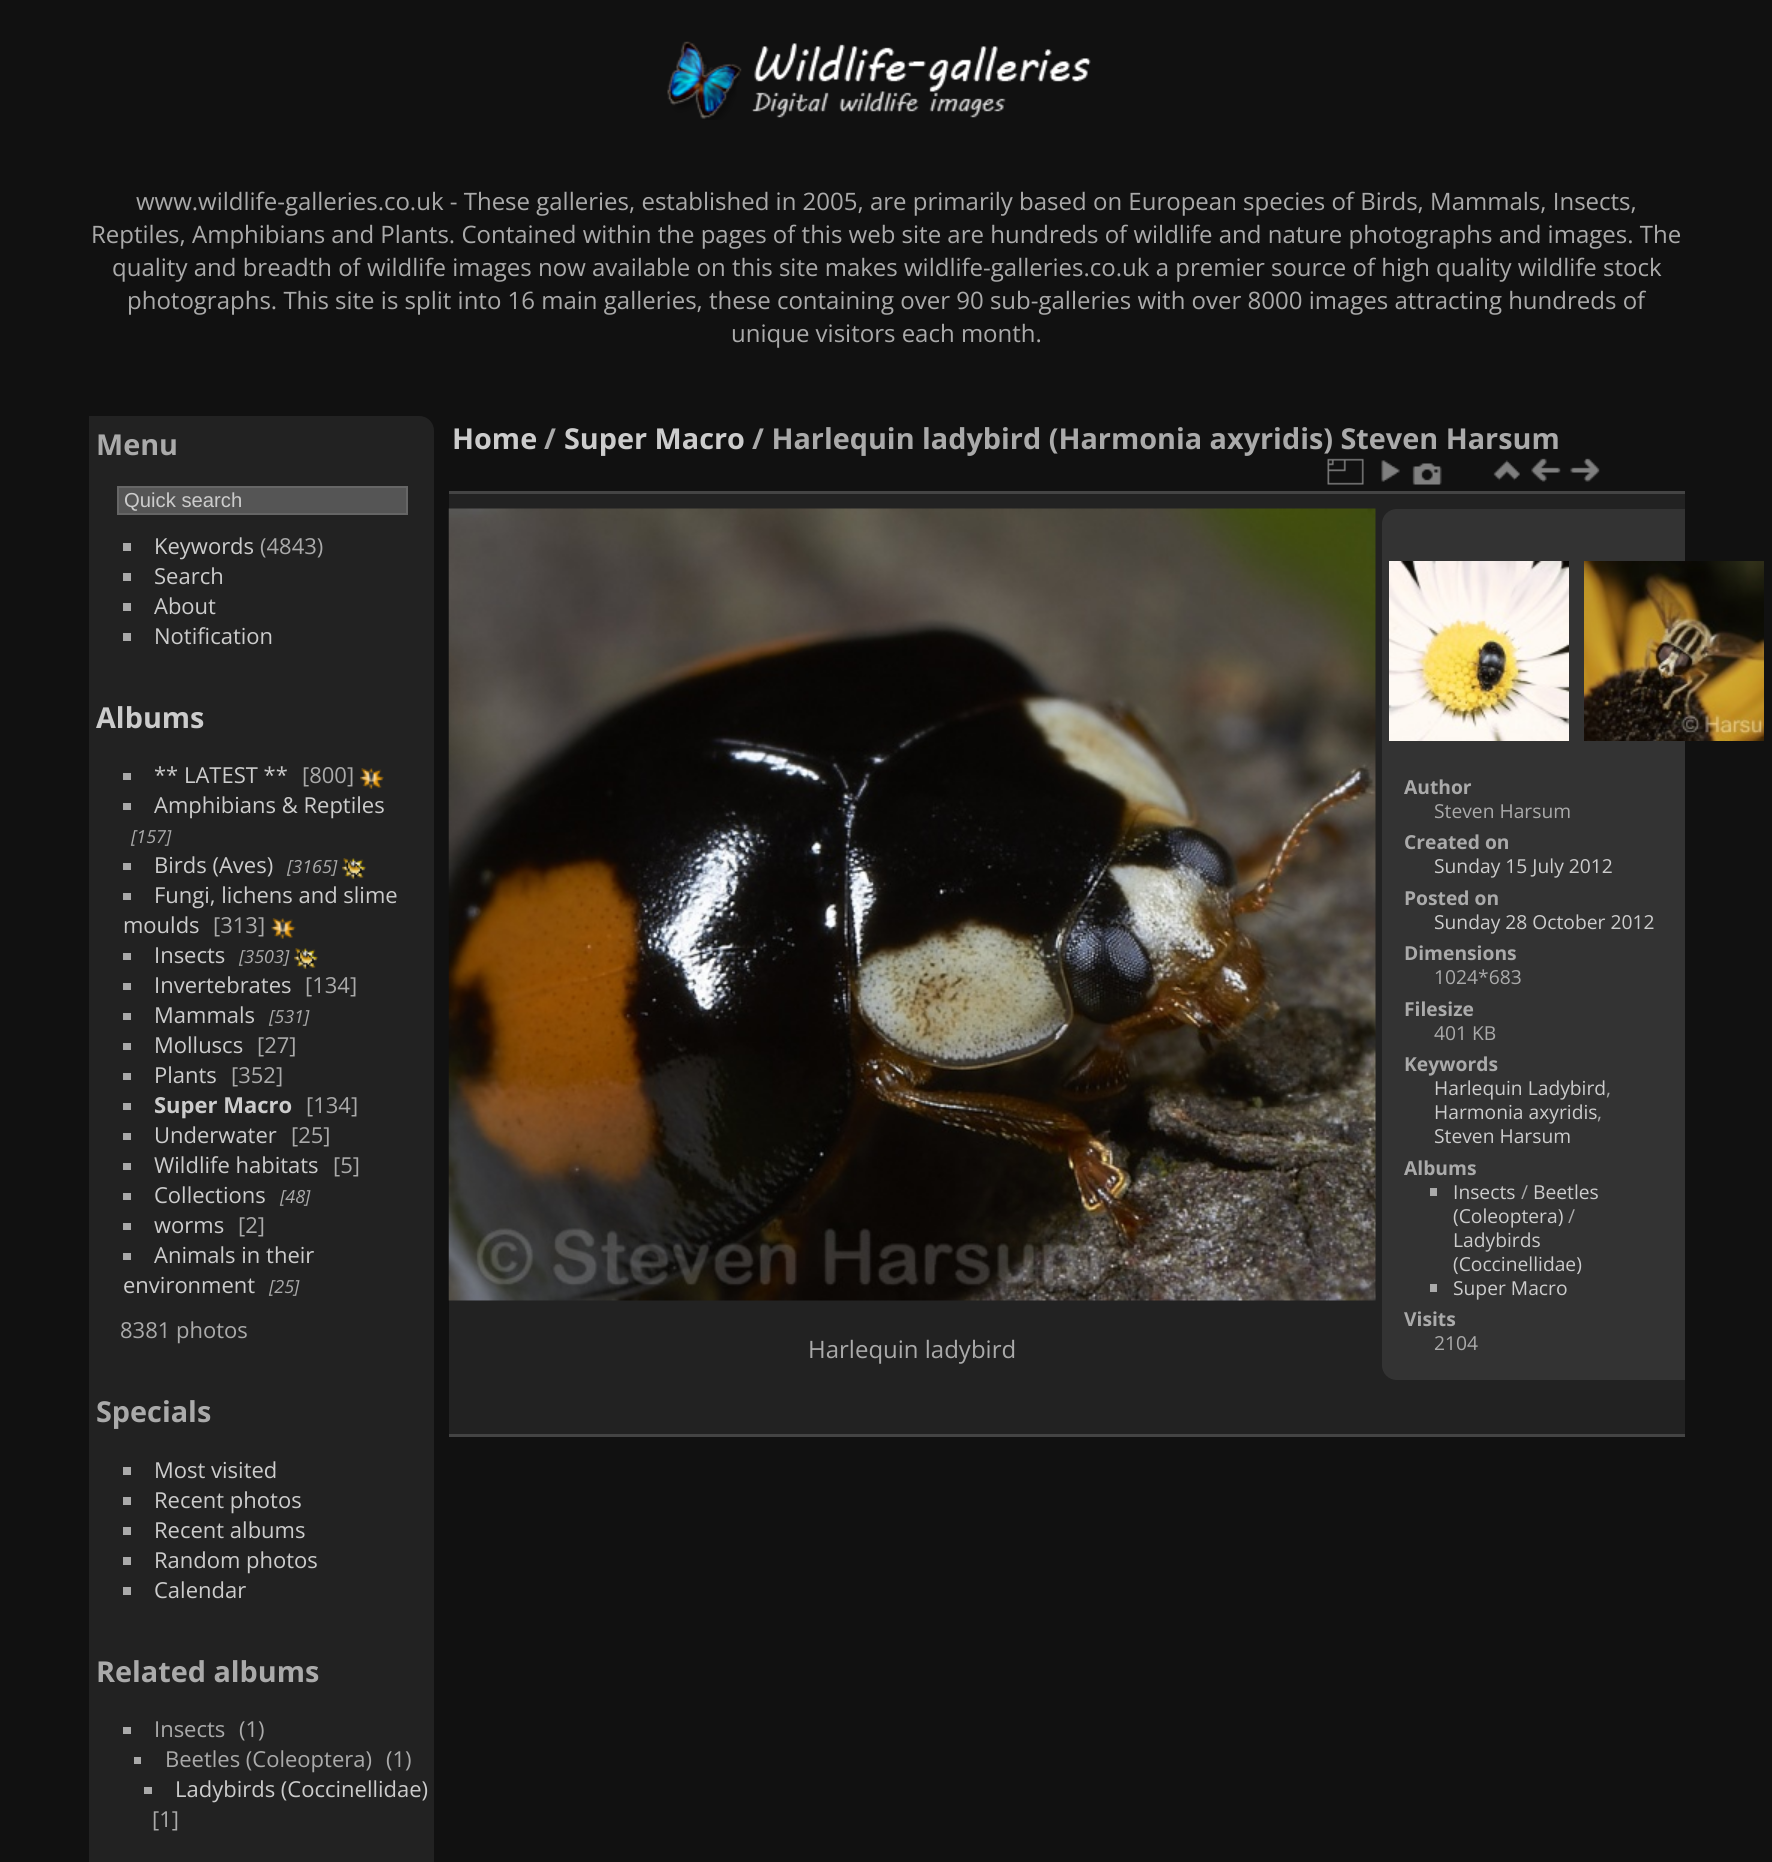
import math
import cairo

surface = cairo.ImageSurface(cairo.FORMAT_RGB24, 1772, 1862)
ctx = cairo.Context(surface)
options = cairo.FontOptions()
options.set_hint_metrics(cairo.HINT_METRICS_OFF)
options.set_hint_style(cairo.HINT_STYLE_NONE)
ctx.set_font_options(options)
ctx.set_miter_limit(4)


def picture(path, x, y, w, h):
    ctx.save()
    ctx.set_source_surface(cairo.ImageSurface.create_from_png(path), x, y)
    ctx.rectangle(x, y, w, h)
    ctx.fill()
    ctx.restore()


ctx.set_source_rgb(0.067, 0.067, 0.067)
ctx.paint()
picture("img1.png", 667, 41, 424, 79)
ctx.select_font_face("Open Sans")
ctx.set_font_size(24)
ctx.set_source_rgb(0.667, 0.667, 0.667)
ctx.move_to(136, 210)
ctx.show_text("www.wildlife-galleries.co.uk - These galleries, established in 2005, are primarily based on European species of Birds, Mammals, Insects,")
ctx.move_to(91, 243)
ctx.show_text("Reptiles, Amphibians and Plants. Contained within the pages of this web site are hundreds of wildlife and nature photographs and images. The")
ctx.move_to(112, 276)
ctx.show_text("quality and breadth of wildlife images now available on this site makes wildlife-galleries.co.uk a premier source of high quality wildlife stock")
ctx.move_to(127, 309)
ctx.show_text("photographs. This site is split into 16 main galleries, these containing over 90 sub-galleries with over 8000 images attracting hundreds of")
ctx.move_to(731, 342)
ctx.show_text("unique visitors each month.")
ctx.set_source_rgb(0.133, 0.133, 0.133)
ctx.new_path()
ctx.move_to(89, 416)
ctx.line_to(419, 416)
ctx.curve_to(427.5, 416, 434, 422.5, 434, 431)
ctx.line_to(434, 1862)
ctx.curve_to(434, 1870.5, 427.5, 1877, 419, 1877)
ctx.line_to(89, 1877)
ctx.close_path()
ctx.fill()
ctx.select_font_face("Open Sans", cairo.FONT_SLANT_NORMAL, cairo.FONT_WEIGHT_BOLD)
ctx.set_font_size(28.8)
ctx.set_source_rgb(0.667, 0.667, 0.667)
ctx.move_to(96, 455)
ctx.show_text("Menu")
ctx.set_source_rgb(0.333, 0.333, 0.333)
ctx.rectangle(118, 487, 289, 27)
ctx.fill_preserve()
ctx.set_source_rgb(0.4, 0.4, 0.4)
ctx.stroke()
ctx.select_font_face("Liberation Sans")
ctx.set_font_size(20.25)
ctx.set_source_rgb(0.8, 0.8, 0.8)
ctx.move_to(124, 507)
ctx.show_text("Quick search")
ctx.set_source_rgb(0.667, 0.667, 0.667)
ctx.rectangle(123, 543, 8, 8)
ctx.fill()
ctx.select_font_face("Open Sans")
ctx.set_font_size(22)
ctx.set_source_rgb(0.8, 0.8, 0.8)
ctx.move_to(154, 554)
ctx.show_text("Keywords")
ctx.set_source_rgb(0.667, 0.667, 0.667)
ctx.move_to(260, 554)
ctx.show_text("(4843)")
ctx.rectangle(123, 573, 8, 8)
ctx.fill()
ctx.set_source_rgb(0.8, 0.8, 0.8)
ctx.move_to(154, 584)
ctx.show_text("Search")
ctx.set_source_rgb(0.667, 0.667, 0.667)
ctx.rectangle(123, 603, 8, 8)
ctx.fill()
ctx.set_source_rgb(0.8, 0.8, 0.8)
ctx.move_to(154, 614)
ctx.show_text("About")
ctx.set_source_rgb(0.667, 0.667, 0.667)
ctx.rectangle(123, 633, 8, 8)
ctx.fill()
ctx.set_source_rgb(0.8, 0.8, 0.8)
ctx.move_to(154, 644)
ctx.show_text("Notification")
ctx.select_font_face("Open Sans", cairo.FONT_SLANT_NORMAL, cairo.FONT_WEIGHT_BOLD)
ctx.set_font_size(28.8)
ctx.move_to(96, 728)
ctx.show_text("Albums")
ctx.set_source_rgb(0.667, 0.667, 0.667)
ctx.rectangle(123, 773, 8, 7)
ctx.fill()
ctx.select_font_face("Open Sans")
ctx.set_font_size(22)
ctx.set_source_rgb(0.8, 0.8, 0.8)
ctx.move_to(154, 783)
ctx.show_text("** LATEST **")
ctx.set_source_rgb(0.667, 0.667, 0.667)
ctx.move_to(302, 783)
ctx.show_text("[800]")
picture("img2.png", 360, 768, 24, 21)
ctx.rectangle(123, 803, 8, 7)
ctx.fill()
ctx.set_source_rgb(0.8, 0.8, 0.8)
ctx.move_to(154, 813)
ctx.show_text("Amphibians & Reptiles")
ctx.select_font_face("Open Sans", cairo.FONT_SLANT_ITALIC)
ctx.set_font_size(18)
ctx.set_source_rgb(0.667, 0.667, 0.667)
ctx.move_to(131, 843)
ctx.show_text("[157]")
ctx.rectangle(123, 863, 8, 7)
ctx.fill()
ctx.select_font_face("Open Sans")
ctx.set_font_size(22)
ctx.set_source_rgb(0.8, 0.8, 0.8)
ctx.move_to(154, 873)
ctx.show_text("Birds (Aves)")
ctx.select_font_face("Open Sans", cairo.FONT_SLANT_ITALIC)
ctx.set_font_size(18)
ctx.set_source_rgb(0.667, 0.667, 0.667)
ctx.move_to(287, 873)
ctx.show_text("[3165]")
picture("img3.png", 342, 858, 24, 21)
ctx.rectangle(123, 893, 8, 7)
ctx.fill()
ctx.select_font_face("Open Sans")
ctx.set_font_size(22)
ctx.set_source_rgb(0.8, 0.8, 0.8)
ctx.move_to(154, 903)
ctx.show_text("Fungi, lichens and slime")
ctx.move_to(123, 933)
ctx.show_text("moulds")
ctx.set_source_rgb(0.667, 0.667, 0.667)
ctx.move_to(213, 933)
ctx.show_text("[313]")
picture("img4.png", 271, 918, 25, 21)
ctx.rectangle(123, 953, 8, 7)
ctx.fill()
ctx.set_source_rgb(0.8, 0.8, 0.8)
ctx.move_to(154, 963)
ctx.show_text("Insects")
ctx.select_font_face("Open Sans", cairo.FONT_SLANT_ITALIC)
ctx.set_font_size(18)
ctx.set_source_rgb(0.667, 0.667, 0.667)
ctx.move_to(239, 963)
ctx.show_text("[3503]")
picture("img3.png", 294, 948, 24, 21)
ctx.rectangle(123, 983, 8, 7)
ctx.fill()
ctx.select_font_face("Open Sans")
ctx.set_font_size(22)
ctx.set_source_rgb(0.8, 0.8, 0.8)
ctx.move_to(154, 993)
ctx.show_text("Invertebrates")
ctx.set_source_rgb(0.667, 0.667, 0.667)
ctx.move_to(305, 993)
ctx.show_text("[134]")
ctx.rectangle(123, 1013, 8, 7)
ctx.fill()
ctx.set_source_rgb(0.8, 0.8, 0.8)
ctx.move_to(154, 1023)
ctx.show_text("Mammals")
ctx.select_font_face("Open Sans", cairo.FONT_SLANT_ITALIC)
ctx.set_font_size(18)
ctx.set_source_rgb(0.667, 0.667, 0.667)
ctx.move_to(269, 1023)
ctx.show_text("[531]")
ctx.rectangle(123, 1043, 8, 7)
ctx.fill()
ctx.select_font_face("Open Sans")
ctx.set_font_size(22)
ctx.set_source_rgb(0.8, 0.8, 0.8)
ctx.move_to(154, 1053)
ctx.show_text("Molluscs")
ctx.set_source_rgb(0.667, 0.667, 0.667)
ctx.move_to(257, 1053)
ctx.show_text("[27]")
ctx.rectangle(123, 1073, 8, 7)
ctx.fill()
ctx.set_source_rgb(0.8, 0.8, 0.8)
ctx.move_to(154, 1083)
ctx.show_text("Plants")
ctx.set_source_rgb(0.667, 0.667, 0.667)
ctx.move_to(231, 1083)
ctx.show_text("[352]")
ctx.rectangle(123, 1103, 8, 7)
ctx.fill()
ctx.select_font_face("Open Sans", cairo.FONT_SLANT_NORMAL, cairo.FONT_WEIGHT_BOLD)
ctx.set_source_rgb(0.8, 0.8, 0.8)
ctx.move_to(154, 1113)
ctx.show_text("Super Macro")
ctx.select_font_face("Open Sans")
ctx.set_source_rgb(0.667, 0.667, 0.667)
ctx.move_to(306, 1113)
ctx.show_text("[134]")
ctx.rectangle(123, 1133, 8, 7)
ctx.fill()
ctx.set_source_rgb(0.8, 0.8, 0.8)
ctx.move_to(154, 1143)
ctx.show_text("Underwater")
ctx.set_source_rgb(0.667, 0.667, 0.667)
ctx.move_to(291, 1143)
ctx.show_text("[25]")
ctx.rectangle(123, 1163, 8, 7)
ctx.fill()
ctx.set_source_rgb(0.8, 0.8, 0.8)
ctx.move_to(154, 1173)
ctx.show_text("Wildlife habitats")
ctx.set_source_rgb(0.667, 0.667, 0.667)
ctx.move_to(333, 1173)
ctx.show_text("[5]")
ctx.rectangle(123, 1193, 8, 7)
ctx.fill()
ctx.set_source_rgb(0.8, 0.8, 0.8)
ctx.move_to(154, 1203)
ctx.show_text("Collections")
ctx.select_font_face("Open Sans", cairo.FONT_SLANT_ITALIC)
ctx.set_font_size(18)
ctx.set_source_rgb(0.667, 0.667, 0.667)
ctx.move_to(280, 1203)
ctx.show_text("[48]")
ctx.rectangle(123, 1223, 8, 7)
ctx.fill()
ctx.select_font_face("Open Sans")
ctx.set_font_size(22)
ctx.set_source_rgb(0.8, 0.8, 0.8)
ctx.move_to(154, 1233)
ctx.show_text("worms")
ctx.set_source_rgb(0.667, 0.667, 0.667)
ctx.move_to(238, 1233)
ctx.show_text("[2]")
ctx.rectangle(123, 1253, 8, 7)
ctx.fill()
ctx.set_source_rgb(0.8, 0.8, 0.8)
ctx.move_to(154, 1263)
ctx.show_text("Animals in their")
ctx.move_to(123, 1293)
ctx.show_text("environment")
ctx.select_font_face("Open Sans", cairo.FONT_SLANT_ITALIC)
ctx.set_font_size(18)
ctx.set_source_rgb(0.667, 0.667, 0.667)
ctx.move_to(269, 1293)
ctx.show_text("[25]")
ctx.select_font_face("Open Sans")
ctx.set_font_size(22)
ctx.move_to(120, 1338)
ctx.show_text("8381 photos")
ctx.select_font_face("Open Sans", cairo.FONT_SLANT_NORMAL, cairo.FONT_WEIGHT_BOLD)
ctx.set_font_size(28.8)
ctx.move_to(96, 1422)
ctx.show_text("Specials")
ctx.rectangle(123, 1467, 8, 8)
ctx.fill()
ctx.select_font_face("Open Sans")
ctx.set_font_size(22)
ctx.set_source_rgb(0.8, 0.8, 0.8)
ctx.move_to(154, 1478)
ctx.show_text("Most visited")
ctx.set_source_rgb(0.667, 0.667, 0.667)
ctx.rectangle(123, 1497, 8, 8)
ctx.fill()
ctx.set_source_rgb(0.8, 0.8, 0.8)
ctx.move_to(154, 1508)
ctx.show_text("Recent photos")
ctx.set_source_rgb(0.667, 0.667, 0.667)
ctx.rectangle(123, 1527, 8, 8)
ctx.fill()
ctx.set_source_rgb(0.8, 0.8, 0.8)
ctx.move_to(154, 1538)
ctx.show_text("Recent albums")
ctx.set_source_rgb(0.667, 0.667, 0.667)
ctx.rectangle(123, 1557, 8, 8)
ctx.fill()
ctx.set_source_rgb(0.8, 0.8, 0.8)
ctx.move_to(154, 1568)
ctx.show_text("Random photos")
ctx.set_source_rgb(0.667, 0.667, 0.667)
ctx.rectangle(123, 1587, 8, 8)
ctx.fill()
ctx.set_source_rgb(0.8, 0.8, 0.8)
ctx.move_to(154, 1598)
ctx.show_text("Calendar")
ctx.select_font_face("Open Sans", cairo.FONT_SLANT_NORMAL, cairo.FONT_WEIGHT_BOLD)
ctx.set_font_size(28.8)
ctx.set_source_rgb(0.667, 0.667, 0.667)
ctx.move_to(96, 1682)
ctx.show_text("Related albums")
ctx.rectangle(123, 1727, 8, 7)
ctx.fill()
ctx.select_font_face("Open Sans")
ctx.set_font_size(22)
ctx.move_to(154, 1737)
ctx.show_text("Insects")
ctx.move_to(239, 1737)
ctx.show_text("(1)")
ctx.rectangle(134, 1757, 7, 7)
ctx.fill()
ctx.move_to(165, 1767)
ctx.show_text("Beetles (Coleoptera)")
ctx.move_to(386, 1767)
ctx.show_text("(1)")
ctx.rectangle(144, 1787, 8, 7)
ctx.fill()
ctx.set_source_rgb(0.8, 0.8, 0.8)
ctx.move_to(175, 1797)
ctx.show_text("Ladybirds (Coccinellidae)")
ctx.set_source_rgb(0.667, 0.667, 0.667)
ctx.move_to(152, 1827)
ctx.show_text("[1]")
ctx.set_source_rgb(0.133, 0.133, 0.133)
ctx.rectangle(449, 494, 1236, 940)
ctx.fill()
ctx.set_source_rgb(0.267, 0.267, 0.267)
ctx.rectangle(449, 1434, 1236, 3)
ctx.fill()
ctx.rectangle(449, 491, 1236, 3)
ctx.fill()
ctx.select_font_face("Open Sans", cairo.FONT_SLANT_NORMAL, cairo.FONT_WEIGHT_BOLD)
ctx.set_font_size(28.8)
ctx.set_source_rgb(0.8, 0.8, 0.8)
ctx.move_to(452, 449)
ctx.show_text("Home")
ctx.set_source_rgb(0.667, 0.667, 0.667)
ctx.move_to(544, 449)
ctx.show_text("/")
ctx.set_source_rgb(0.8, 0.8, 0.8)
ctx.move_to(564, 449)
ctx.show_text("Super Macro")
ctx.set_source_rgb(0.667, 0.667, 0.667)
ctx.move_to(752, 449)
ctx.show_text("/ Harlequin ladybird (Harmonia axyridis) Steven Harsum")
picture("img5.png", 1327, 458, 37, 27)
picture("img6.png", 1381, 460, 19, 22)
picture("img7.png", 1412, 463, 30, 22)
picture("img8.png", 1493, 460, 27, 21)
picture("img9.png", 1531, 458, 30, 24)
picture("img10.png", 1570, 458, 30, 24)
picture("img11.png", 448, 508, 928, 793)
ctx.select_font_face("Open Sans")
ctx.set_font_size(24)
ctx.move_to(808, 1358)
ctx.show_text("Harlequin ladybird")
ctx.set_source_rgb(0.2, 0.2, 0.2)
ctx.new_path()
ctx.move_to(1397, 509)
ctx.line_to(1685, 509)
ctx.line_to(1685, 1380)
ctx.line_to(1397, 1380)
ctx.curve_to(1388.5, 1380, 1382, 1373.5, 1382, 1365)
ctx.line_to(1382, 524)
ctx.curve_to(1382, 515.5, 1388.5, 509, 1397, 509)
ctx.close_path()
ctx.fill()
picture("img12.png", 1389, 561, 180, 180)
picture("img13.png", 1584, 561, 180, 180)
ctx.select_font_face("Open Sans", cairo.FONT_SLANT_NORMAL, cairo.FONT_WEIGHT_BOLD)
ctx.set_font_size(19.25)
ctx.set_source_rgb(0.667, 0.667, 0.667)
ctx.move_to(1404, 794)
ctx.show_text("Author")
ctx.select_font_face("Open Sans")
ctx.move_to(1434, 818)
ctx.show_text("Steven Harsum")
ctx.select_font_face("Open Sans", cairo.FONT_SLANT_NORMAL, cairo.FONT_WEIGHT_BOLD)
ctx.move_to(1404, 849)
ctx.show_text("Created on")
ctx.select_font_face("Open Sans")
ctx.set_source_rgb(0.8, 0.8, 0.8)
ctx.move_to(1434, 873)
ctx.show_text("Sunday 15 July 2012")
ctx.select_font_face("Open Sans", cairo.FONT_SLANT_NORMAL, cairo.FONT_WEIGHT_BOLD)
ctx.set_source_rgb(0.667, 0.667, 0.667)
ctx.move_to(1404, 905)
ctx.show_text("Posted on")
ctx.select_font_face("Open Sans")
ctx.set_source_rgb(0.8, 0.8, 0.8)
ctx.move_to(1434, 929)
ctx.show_text("Sunday 28 October 2012")
ctx.select_font_face("Open Sans", cairo.FONT_SLANT_NORMAL, cairo.FONT_WEIGHT_BOLD)
ctx.set_source_rgb(0.667, 0.667, 0.667)
ctx.move_to(1404, 960)
ctx.show_text("Dimensions")
ctx.select_font_face("Open Sans")
ctx.move_to(1434, 984)
ctx.show_text("1024*683")
ctx.select_font_face("Open Sans", cairo.FONT_SLANT_NORMAL, cairo.FONT_WEIGHT_BOLD)
ctx.move_to(1404, 1016)
ctx.show_text("Filesize")
ctx.select_font_face("Open Sans")
ctx.move_to(1434, 1040)
ctx.show_text("401 KB")
ctx.select_font_face("Open Sans", cairo.FONT_SLANT_NORMAL, cairo.FONT_WEIGHT_BOLD)
ctx.move_to(1404, 1071)
ctx.show_text("Keywords")
ctx.select_font_face("Open Sans")
ctx.set_source_rgb(0.8, 0.8, 0.8)
ctx.move_to(1434, 1095)
ctx.show_text("Harlequin Ladybird")
ctx.set_source_rgb(0.667, 0.667, 0.667)
ctx.move_to(1606, 1095)
ctx.show_text(",")
ctx.set_source_rgb(0.8, 0.8, 0.8)
ctx.move_to(1434, 1119)
ctx.show_text("Harmonia axyridis")
ctx.set_source_rgb(0.667, 0.667, 0.667)
ctx.move_to(1597, 1119)
ctx.show_text(",")
ctx.set_source_rgb(0.8, 0.8, 0.8)
ctx.move_to(1434, 1143)
ctx.show_text("Steven Harsum")
ctx.select_font_face("Open Sans", cairo.FONT_SLANT_NORMAL, cairo.FONT_WEIGHT_BOLD)
ctx.set_source_rgb(0.667, 0.667, 0.667)
ctx.move_to(1404, 1175)
ctx.show_text("Albums")
ctx.rectangle(1430, 1188, 7, 8)
ctx.fill()
ctx.select_font_face("Open Sans")
ctx.set_source_rgb(0.8, 0.8, 0.8)
ctx.move_to(1453, 1199)
ctx.show_text("Insects")
ctx.set_source_rgb(0.667, 0.667, 0.667)
ctx.move_to(1521, 1199)
ctx.show_text("/")
ctx.set_source_rgb(0.8, 0.8, 0.8)
ctx.move_to(1533, 1199)
ctx.show_text("Beetles")
ctx.move_to(1453, 1223)
ctx.show_text("(Coleoptera)")
ctx.set_source_rgb(0.667, 0.667, 0.667)
ctx.move_to(1568, 1223)
ctx.show_text("/")
ctx.set_source_rgb(0.8, 0.8, 0.8)
ctx.move_to(1453, 1247)
ctx.show_text("Ladybirds")
ctx.move_to(1453, 1271)
ctx.show_text("(Coccinellidae)")
ctx.set_source_rgb(0.667, 0.667, 0.667)
ctx.rectangle(1430, 1284, 7, 8)
ctx.fill()
ctx.set_source_rgb(0.8, 0.8, 0.8)
ctx.move_to(1453, 1295)
ctx.show_text("Super Macro")
ctx.select_font_face("Open Sans", cairo.FONT_SLANT_NORMAL, cairo.FONT_WEIGHT_BOLD)
ctx.set_source_rgb(0.667, 0.667, 0.667)
ctx.move_to(1404, 1326)
ctx.show_text("Visits")
ctx.select_font_face("Open Sans")
ctx.move_to(1434, 1350)
ctx.show_text("2104")
surface.write_to_png("page.png")
